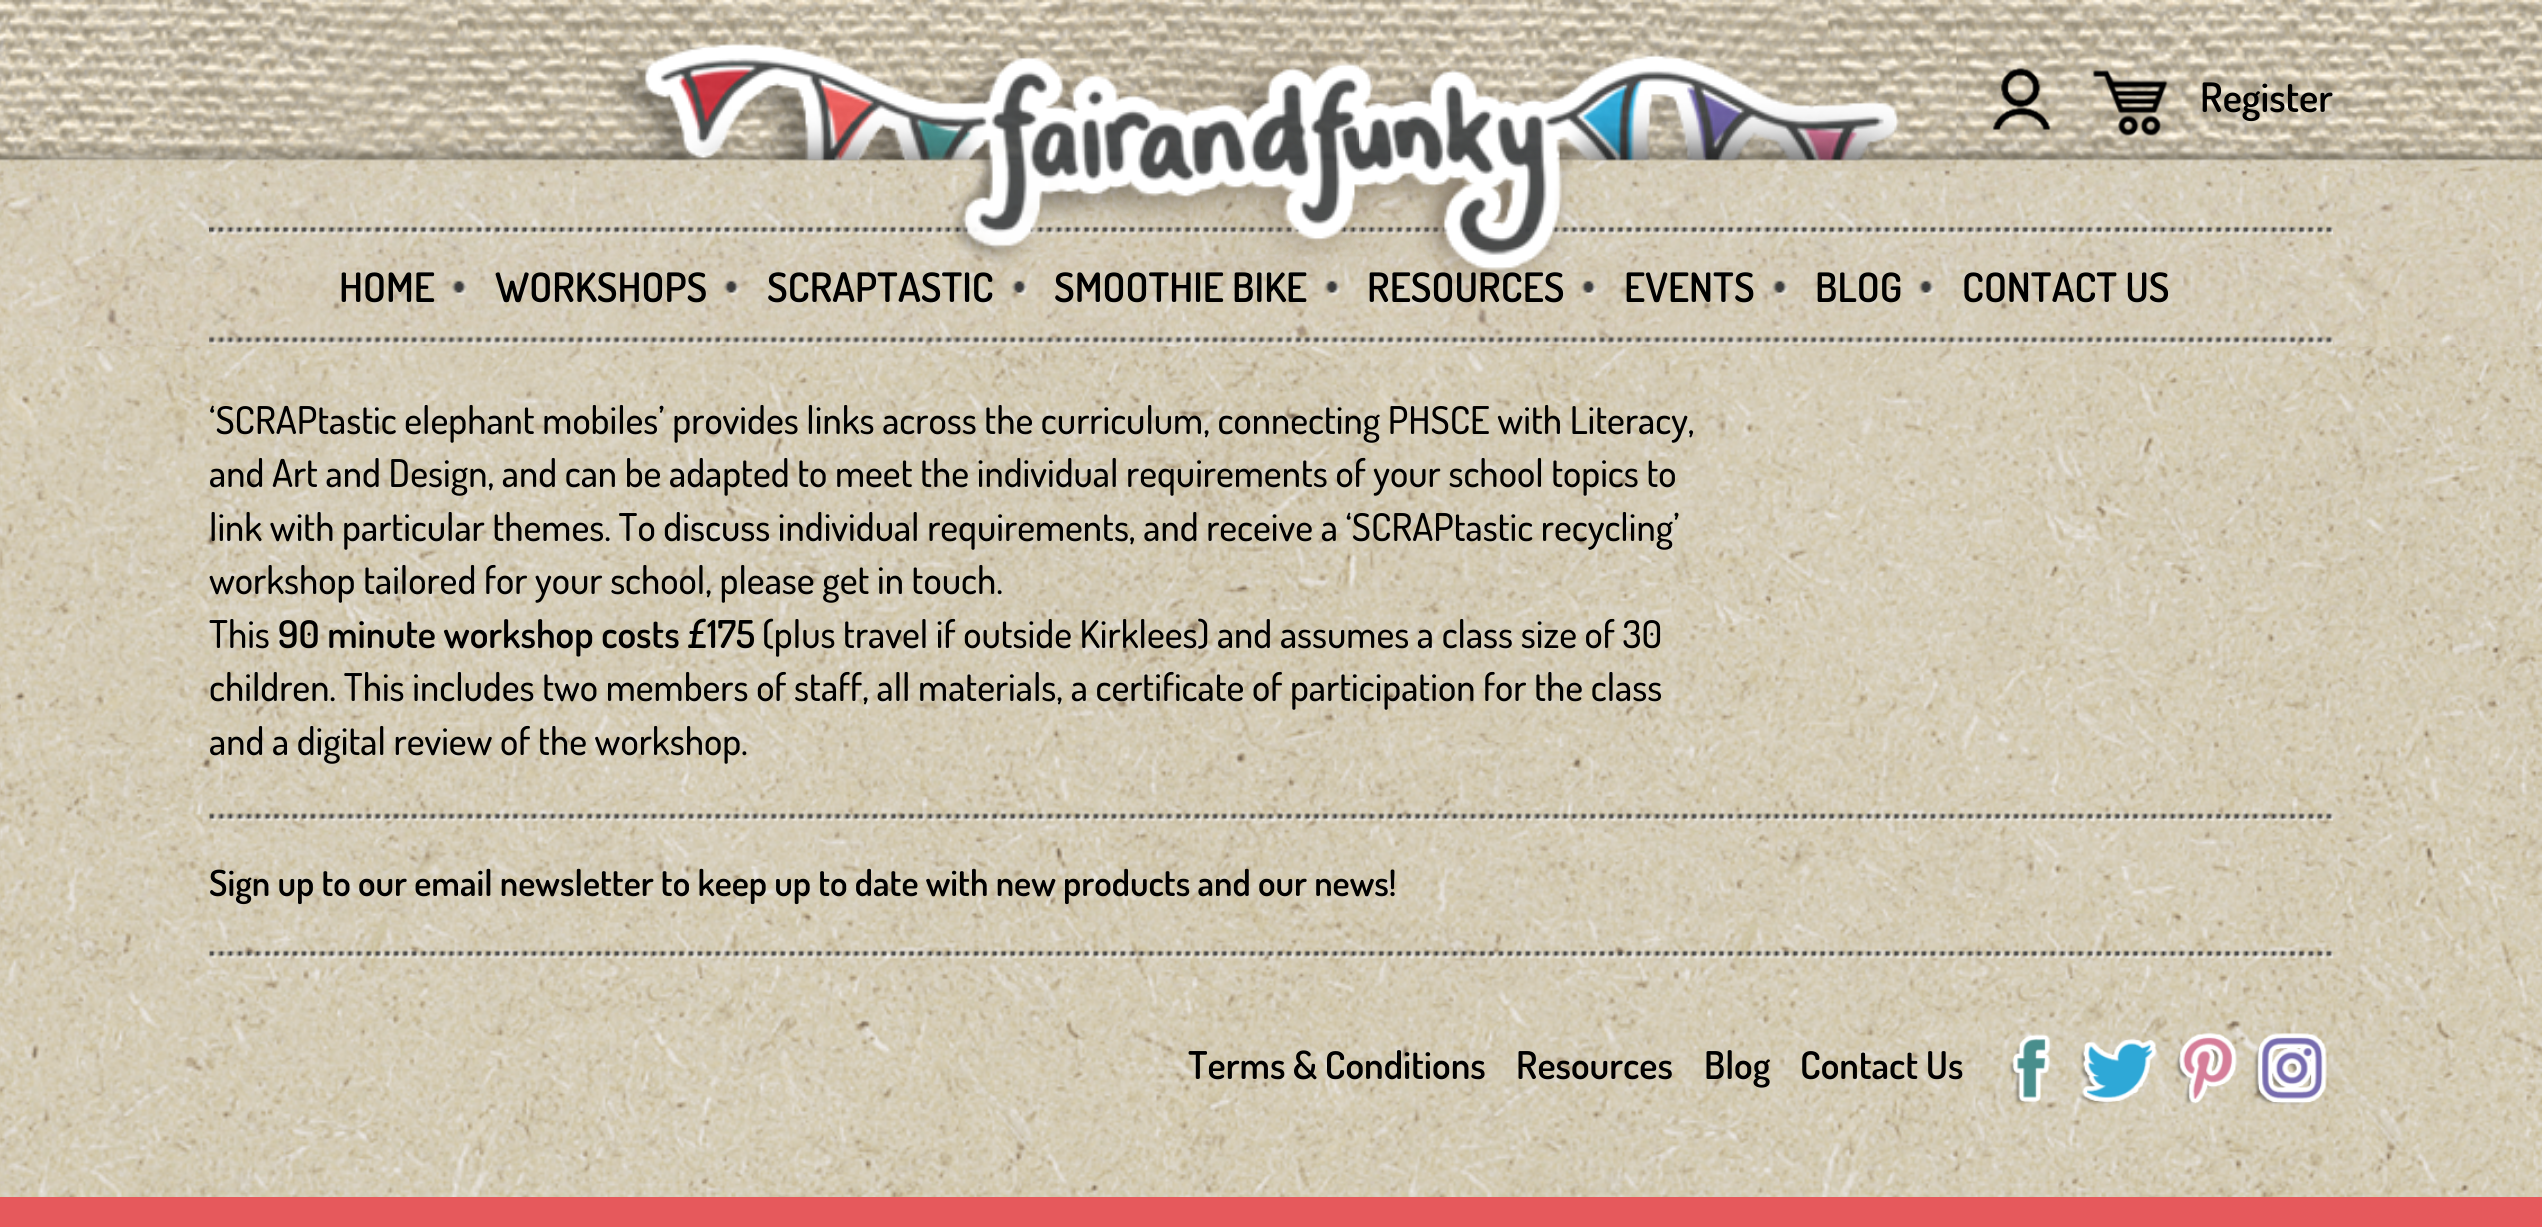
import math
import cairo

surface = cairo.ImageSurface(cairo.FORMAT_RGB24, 2542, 1227)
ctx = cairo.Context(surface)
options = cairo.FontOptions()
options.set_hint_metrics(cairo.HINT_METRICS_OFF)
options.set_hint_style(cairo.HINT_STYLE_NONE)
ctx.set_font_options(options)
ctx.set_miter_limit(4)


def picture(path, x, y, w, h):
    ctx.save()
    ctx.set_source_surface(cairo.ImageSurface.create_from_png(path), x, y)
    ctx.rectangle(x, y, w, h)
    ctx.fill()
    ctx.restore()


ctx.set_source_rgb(1, 1, 1)
ctx.paint()
picture("img1.png", 0, 157, 2542, 1040)
picture("img14.png", 211, 157, 20, 10)
picture("img15.png", 211, 199, 20, 22)
picture("img16.png", 211, 253, 20, 22)
picture("img17.png", 211, 307, 20, 22)
picture("img4.png", 0, 0, 2542, 347)
picture("img5.png", 209, 0, 2124, 282)
picture("img2.png", 1993, 68, 58, 62)
picture("img3.png", 2093, 70, 75, 66)
ctx.select_font_face("Dosis SemiBold")
ctx.set_font_size(40.5)
ctx.set_source_rgb(0, 0, 0)
ctx.move_to(2200, 112)
ctx.show_text("Register")
picture("img6.png", 209, 336, 2124, 10)
picture("img7.png", 451, 280, 18, 16)
ctx.move_to(339, 302)
ctx.show_text("HOME")
picture("img8.png", 723, 280, 18, 16)
ctx.move_to(495, 302)
ctx.show_text("WORKSHOPS")
picture("img9.png", 1011, 280, 18, 16)
ctx.move_to(767, 302)
ctx.show_text("SCRAPTASTIC")
picture("img10.png", 1324, 280, 18, 16)
ctx.move_to(1054, 302)
ctx.show_text("SMOOTHIE BIKE")
picture("img11.png", 1581, 280, 17, 16)
ctx.move_to(1367, 302)
ctx.show_text("RESOURCES")
picture("img12.png", 1772, 280, 17, 16)
ctx.move_to(1624, 302)
ctx.show_text("EVENTS")
picture("img13.png", 1918, 280, 17, 16)
ctx.move_to(1815, 302)
ctx.show_text("BLOG")
ctx.move_to(1962, 302)
ctx.show_text("CONTACT US")
ctx.select_font_face("Dosis Medium")
ctx.set_font_size(38.25)
ctx.move_to(209, 434)
ctx.show_text("‘SCRAPtastic elephant mobiles’ provides links across the curriculum, connecting PHSCE with Literacy,")
ctx.move_to(209, 487)
ctx.show_text("and Art and Design, and can be adapted to meet the individual requirements of your school topics to")
ctx.move_to(209, 541)
ctx.show_text("link with particular themes. To discuss individual requirements, and receive a ‘SCRAPtastic recycling’")
ctx.move_to(209, 594)
ctx.show_text("workshop tailored for your school, please get in touch.")
ctx.move_to(209, 648)
ctx.show_text("This")
ctx.select_font_face("Dosis SemiBold")
ctx.move_to(278, 648)
ctx.show_text("90 minute workshop costs £175")
ctx.select_font_face("Dosis Medium")
ctx.move_to(762, 648)
ctx.show_text("(plus travel if outside Kirklees) and assumes a class size of 30")
ctx.move_to(209, 701)
ctx.show_text("children. This includes two members of staff, all materials, a certificate of participation for the class")
ctx.move_to(209, 755)
ctx.show_text("and a digital review of the workshop.")
picture("img18.png", 209, 813, 2125, 146)
ctx.select_font_face("Dosis SemiBold")
ctx.set_font_size(36)
ctx.move_to(209, 896)
ctx.show_text("Sign up to our email newsletter to keep up to date with new products and our news!")
ctx.set_font_size(38.25)
ctx.move_to(1188, 1079)
ctx.show_text("Terms & Conditions")
ctx.move_to(1516, 1079)
ctx.show_text("Resources")
ctx.move_to(1704, 1079)
ctx.show_text("Blog")
ctx.move_to(1800, 1079)
ctx.show_text("Contact Us")
picture("img19.png", 2008, 1034, 42, 70)
picture("img20.png", 2079, 1039, 78, 65)
picture("img21.png", 2175, 1033, 62, 72)
picture("img22.png", 2253, 1033, 74, 72)
ctx.set_source_rgb(0.902, 0.349, 0.361)
ctx.rectangle(0, 1197, 2542, 30)
ctx.fill()
surface.write_to_png("page.png")
